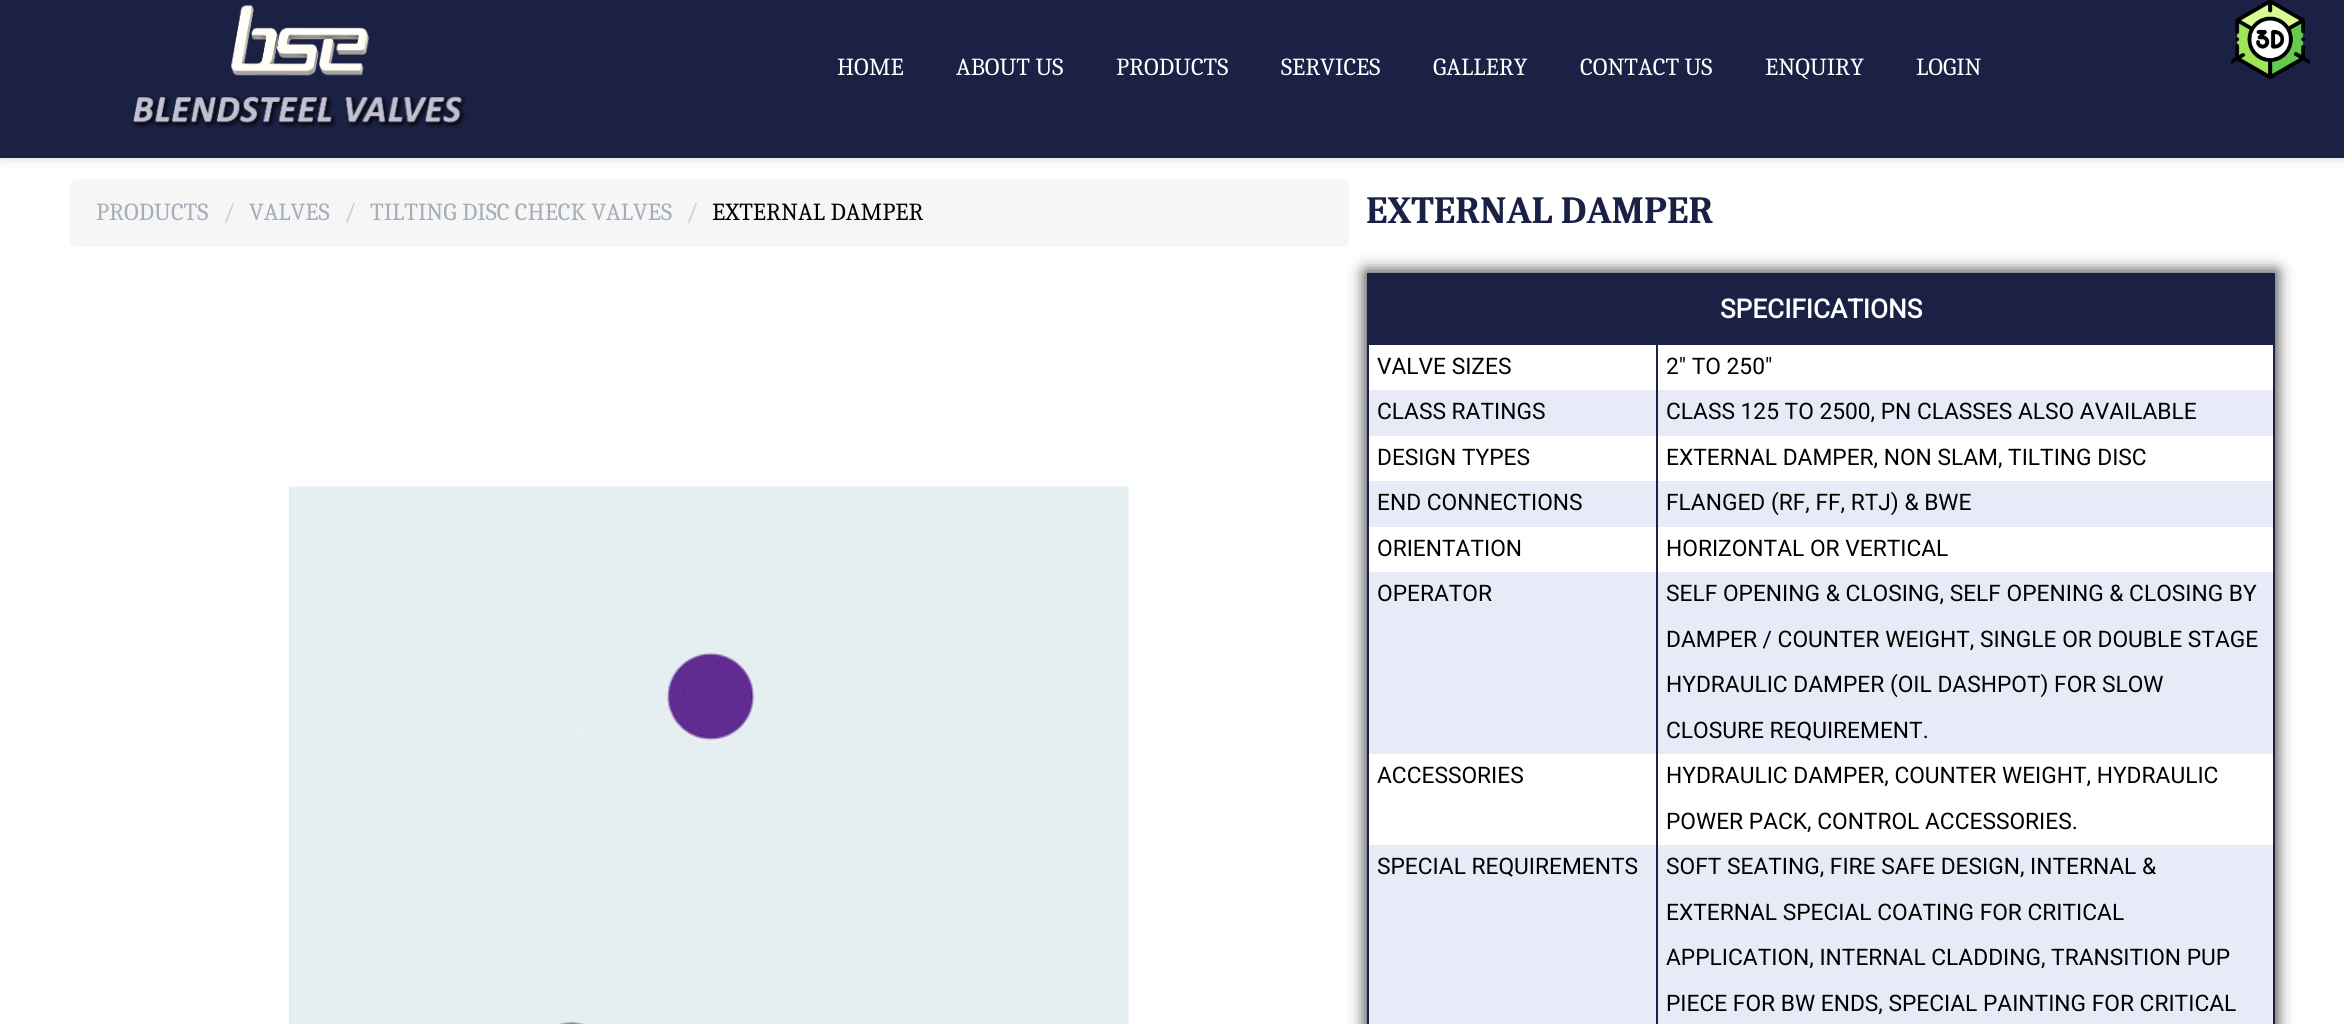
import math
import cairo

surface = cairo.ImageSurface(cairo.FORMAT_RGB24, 2344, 1024)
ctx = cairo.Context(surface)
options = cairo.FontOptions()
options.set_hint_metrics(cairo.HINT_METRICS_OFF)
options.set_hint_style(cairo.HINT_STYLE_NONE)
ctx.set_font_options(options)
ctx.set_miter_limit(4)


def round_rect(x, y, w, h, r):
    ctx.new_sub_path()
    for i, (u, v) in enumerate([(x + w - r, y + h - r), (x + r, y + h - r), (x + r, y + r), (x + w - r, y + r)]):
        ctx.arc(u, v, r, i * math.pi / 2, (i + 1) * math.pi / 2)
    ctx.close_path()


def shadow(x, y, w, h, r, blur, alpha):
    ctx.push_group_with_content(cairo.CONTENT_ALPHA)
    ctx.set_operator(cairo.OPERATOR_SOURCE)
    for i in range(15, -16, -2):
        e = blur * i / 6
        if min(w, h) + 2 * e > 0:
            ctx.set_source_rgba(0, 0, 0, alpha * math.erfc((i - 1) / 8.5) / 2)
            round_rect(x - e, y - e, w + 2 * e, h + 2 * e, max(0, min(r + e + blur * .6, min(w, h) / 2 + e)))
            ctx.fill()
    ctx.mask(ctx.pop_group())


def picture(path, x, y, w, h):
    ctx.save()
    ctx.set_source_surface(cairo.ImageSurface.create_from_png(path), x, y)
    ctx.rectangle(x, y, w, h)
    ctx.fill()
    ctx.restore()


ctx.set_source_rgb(1, 1, 1)
ctx.paint()
ctx.set_source_rgb(0, 0, 0)
shadow(0, 0, 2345, 158, 0, 5, 0.2)
ctx.set_source_rgb(0.102, 0.129, 0.267)
ctx.rectangle(0, 0, 2344, 158)
ctx.fill()
picture("img1.png", 231, 5, 139, 71)
picture("img2.png", 132, 95, 335, 33)
ctx.select_font_face("Caladea")
ctx.set_font_size(24.5)
ctx.set_source_rgb(1, 1, 1)
ctx.move_to(837, 75)
ctx.show_text("HOME")
ctx.move_to(956, 75)
ctx.show_text("ABOUT US")
ctx.move_to(1116, 75)
ctx.show_text("PRODUCTS")
ctx.move_to(1281, 75)
ctx.show_text("SERVICES")
ctx.move_to(1433, 75)
ctx.show_text("GALLERY")
ctx.move_to(1580, 75)
ctx.show_text("CONTACT US")
ctx.move_to(1765, 75)
ctx.show_text("ENQUIRY")
ctx.move_to(1916, 75)
ctx.show_text("LOGIN")
picture("img3.png", 2231, 0, 79, 79)
ctx.set_source_rgb(0.961, 0.961, 0.961)
round_rect(70, 179, 1279, 68, 7)
ctx.fill()
ctx.set_source_rgb(0.643, 0.678, 0.729)
ctx.move_to(96, 220)
ctx.show_text("PRODUCTS")
ctx.set_source_rgb(0.8, 0.8, 0.8)
ctx.move_to(223, 220)
ctx.show_text("/")
ctx.set_source_rgb(0.643, 0.678, 0.729)
ctx.move_to(249, 220)
ctx.show_text("VALVES")
ctx.set_source_rgb(0.8, 0.8, 0.8)
ctx.move_to(344, 220)
ctx.show_text("/")
ctx.set_source_rgb(0.643, 0.678, 0.729)
ctx.move_to(370, 220)
ctx.show_text("TILTING DISC CHECK VALVES")
ctx.set_source_rgb(0.8, 0.8, 0.8)
ctx.move_to(686, 220)
ctx.show_text("/")
ctx.set_source_rgb(0, 0, 0)
ctx.move_to(712, 220)
ctx.show_text("EXTERNAL DAMPER")
picture("img4.png", 288, 486, 841, 538)
ctx.select_font_face("Caladea", cairo.FONT_SLANT_NORMAL, cairo.FONT_WEIGHT_BOLD)
ctx.set_font_size(38.5)
ctx.set_source_rgb(0.102, 0.129, 0.267)
ctx.move_to(1366, 223)
ctx.show_text("EXTERNAL DAMPER")
ctx.save()
ctx.set_fill_rule(cairo.FILL_RULE_EVEN_ODD)
ctx.new_path()
ctx.move_to(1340, 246)
ctx.line_to(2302, 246)
ctx.line_to(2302, 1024)
ctx.line_to(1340, 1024)
ctx.close_path()
ctx.move_to(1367, 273)
ctx.line_to(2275, 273)
ctx.line_to(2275, 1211)
ctx.line_to(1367, 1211)
ctx.close_path()
ctx.clip()
ctx.set_source_rgb(0, 0, 0)
shadow(1365, 271, 912, 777, 0, 8, 0.75)
ctx.restore()
ctx.rectangle(1367, 273, 908, 2)
ctx.fill()
ctx.rectangle(2273, 273, 2, 751)
ctx.fill()
ctx.rectangle(1367, 273, 2, 751)
ctx.fill()
ctx.rectangle(1369, 275, 904, 70)
ctx.fill()
ctx.select_font_face("Roboto", cairo.FONT_SLANT_NORMAL, cairo.FONT_WEIGHT_BOLD)
ctx.set_font_size(26.25)
ctx.set_source_rgb(1, 1, 1)
ctx.move_to(1720, 318)
ctx.show_text("SPECIFICATIONS")
ctx.select_font_face("Roboto")
ctx.set_font_size(22.75)
ctx.set_source_rgb(0, 0, 0)
ctx.move_to(1377, 374)
ctx.show_text("VALVE SIZES")
ctx.move_to(1666, 374)
ctx.show_text("2\" TO 250\"")
ctx.set_source_rgb(0.91, 0.918, 0.965)
ctx.rectangle(1369, 390, 904, 46)
ctx.fill()
ctx.set_source_rgb(0, 0, 0)
ctx.move_to(1377, 419)
ctx.show_text("CLASS RATINGS")
ctx.move_to(1666, 419)
ctx.show_text("CLASS 125 TO 2500, PN CLASSES ALSO AVAILABLE")
ctx.move_to(1377, 465)
ctx.show_text("DESIGN TYPES")
ctx.move_to(1666, 465)
ctx.show_text("EXTERNAL DAMPER, NON SLAM, TILTING DISC")
ctx.set_source_rgb(0.91, 0.918, 0.965)
ctx.rectangle(1369, 481, 904, 46)
ctx.fill()
ctx.set_source_rgb(0, 0, 0)
ctx.move_to(1377, 510)
ctx.show_text("END CONNECTIONS")
ctx.move_to(1666, 510)
ctx.show_text("FLANGED (RF, FF, RTJ) & BWE")
ctx.move_to(1377, 556)
ctx.show_text("ORIENTATION")
ctx.move_to(1666, 556)
ctx.show_text("HORIZONTAL OR VERTICAL")
ctx.set_source_rgb(0.91, 0.918, 0.965)
ctx.rectangle(1369, 572, 904, 182)
ctx.fill()
ctx.set_source_rgb(0, 0, 0)
ctx.move_to(1377, 601)
ctx.show_text("OPERATOR")
ctx.move_to(1666, 601)
ctx.show_text("SELF OPENING & CLOSING, SELF OPENING & CLOSING BY")
ctx.move_to(1666, 647)
ctx.show_text("DAMPER / COUNTER WEIGHT, SINGLE OR DOUBLE STAGE")
ctx.move_to(1666, 692)
ctx.show_text("HYDRAULIC DAMPER (OIL DASHPOT) FOR SLOW")
ctx.move_to(1666, 738)
ctx.show_text("CLOSURE REQUIREMENT.")
ctx.move_to(1377, 783)
ctx.show_text("ACCESSORIES")
ctx.move_to(1666, 783)
ctx.show_text("HYDRAULIC DAMPER, COUNTER WEIGHT, HYDRAULIC")
ctx.move_to(1666, 829)
ctx.show_text("POWER PACK, CONTROL ACCESSORIES.")
ctx.set_source_rgb(0.91, 0.918, 0.965)
ctx.rectangle(1369, 845, 904, 179)
ctx.fill()
ctx.set_source_rgb(0, 0, 0)
ctx.move_to(1377, 874)
ctx.show_text("SPECIAL REQUIREMENTS")
ctx.set_source_rgb(0.102, 0.129, 0.267)
ctx.rectangle(1656, 343, 2, 681)
ctx.fill()
ctx.set_source_rgb(0, 0, 0)
ctx.move_to(1666, 874)
ctx.show_text("SOFT SEATING, FIRE SAFE DESIGN, INTERNAL &")
ctx.move_to(1666, 920)
ctx.show_text("EXTERNAL SPECIAL COATING FOR CRITICAL")
ctx.move_to(1666, 965)
ctx.show_text("APPLICATION, INTERNAL CLADDING, TRANSITION PUP")
ctx.move_to(1666, 1011)
ctx.show_text("PIECE FOR BW ENDS, SPECIAL PAINTING FOR CRITICAL")
surface.write_to_png("page.png")
